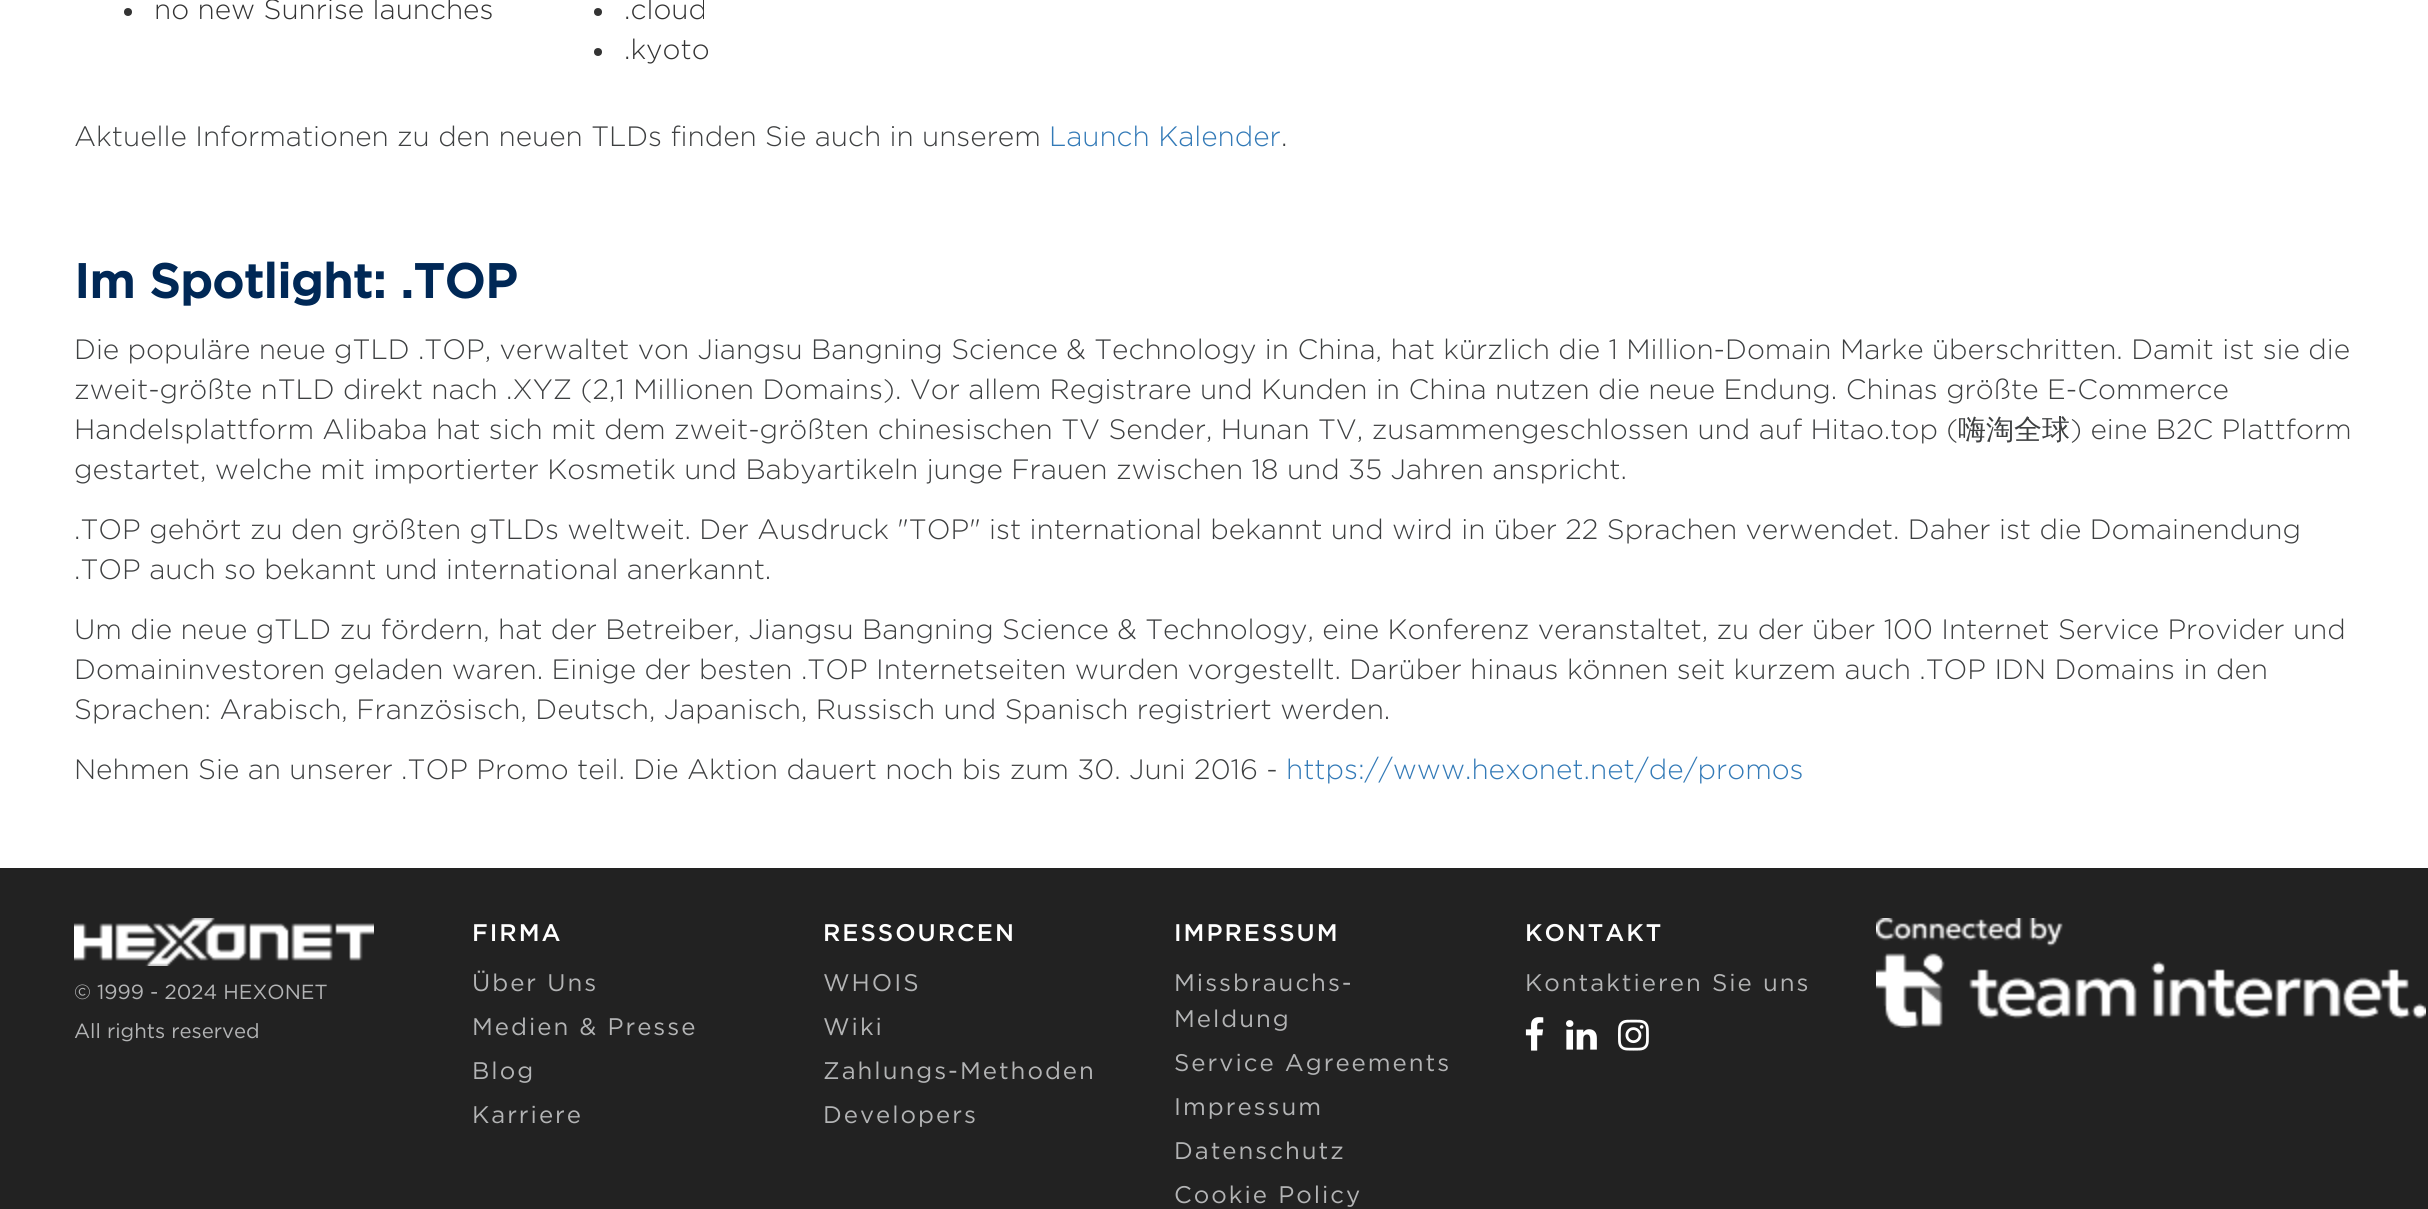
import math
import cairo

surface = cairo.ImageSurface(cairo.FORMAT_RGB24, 2428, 1209)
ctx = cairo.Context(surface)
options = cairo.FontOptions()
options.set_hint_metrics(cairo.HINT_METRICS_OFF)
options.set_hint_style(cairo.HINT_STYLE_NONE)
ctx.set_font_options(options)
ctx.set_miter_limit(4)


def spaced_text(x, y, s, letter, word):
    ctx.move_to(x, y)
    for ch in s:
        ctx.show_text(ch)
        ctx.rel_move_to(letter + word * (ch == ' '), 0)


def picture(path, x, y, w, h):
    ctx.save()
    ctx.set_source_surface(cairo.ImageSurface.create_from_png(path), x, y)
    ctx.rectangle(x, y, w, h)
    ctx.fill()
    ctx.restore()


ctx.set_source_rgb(1, 1, 1)
ctx.paint()
ctx.set_source_rgb(0.2, 0.2, 0.2)
ctx.arc(128, 12, 4, 0, 2 * math.pi)
ctx.fill()
ctx.select_font_face("Gotham Light")
ctx.set_font_size(28)
ctx.move_to(154, 19)
ctx.show_text("no new Sunrise launches")
ctx.new_path()
ctx.arc(598, 12, 4, 0, 2 * math.pi)
ctx.fill()
ctx.move_to(624, 19)
ctx.show_text(".cloud")
ctx.new_path()
ctx.arc(598, 52, 4, 0, 2 * math.pi)
ctx.fill()
ctx.move_to(624, 59)
ctx.show_text(".kyoto")
ctx.set_source_rgb(0.243, 0.251, 0.255)
ctx.move_to(74, 146)
ctx.show_text("Aktuelle Informationen zu den neuen TLDs finden Sie auch in unserem")
ctx.set_source_rgb(0.2, 0.478, 0.718)
ctx.move_to(1049, 146)
ctx.show_text("Launch Kalender")
ctx.set_source_rgb(0.243, 0.251, 0.255)
ctx.move_to(1281, 146)
ctx.show_text(".")
ctx.select_font_face("Gotham", cairo.FONT_SLANT_NORMAL, cairo.FONT_WEIGHT_BOLD)
ctx.set_font_size(48)
ctx.set_source_rgb(0, 0.157, 0.337)
ctx.move_to(74, 298)
ctx.show_text("Im Spotlight: .TOP")
ctx.select_font_face("Gotham Light")
ctx.set_font_size(28)
ctx.set_source_rgb(0.243, 0.251, 0.255)
ctx.move_to(74, 359)
ctx.show_text("Die populäre neue gTLD .TOP, verwaltet von Jiangsu Bangning Science & Technology in China, hat kürzlich die 1 Million-Domain Marke überschritten. Damit ist sie die")
ctx.move_to(74, 399)
ctx.show_text("zweit-größte nTLD direkt nach .XYZ (2,1 Millionen Domains). Vor allem Registrare und Kunden in China nutzen die neue Endung. Chinas größte E-Commerce")
ctx.move_to(74, 439)
ctx.show_text("Handelsplattform Alibaba hat sich mit dem zweit-größten chinesischen TV Sender, Hunan TV, zusammengeschlossen und auf Hitao.top (")
ctx.select_font_face("WenQuanYi Zen Hei Medium")
ctx.move_to(1958, 439)
ctx.show_text("嗨淘全球")
ctx.select_font_face("Gotham Light")
ctx.move_to(2070, 439)
ctx.show_text(") eine B2C Plattform")
ctx.move_to(74, 479)
ctx.show_text("gestartet, welche mit importierter Kosmetik und Babyartikeln junge Frauen zwischen 18 und 35 Jahren anspricht.")
ctx.move_to(74, 539)
ctx.show_text(".TOP gehört zu den größten gTLDs weltweit. Der Ausdruck \"TOP\" ist international bekannt und wird in über 22 Sprachen verwendet. Daher ist die Domainendung")
ctx.move_to(74, 579)
ctx.show_text(".TOP auch so bekannt und international anerkannt.")
ctx.move_to(74, 639)
ctx.show_text("Um die neue gTLD zu fördern, hat der Betreiber, Jiangsu Bangning Science & Technology, eine Konferenz veranstaltet, zu der über 100 Internet Service Provider und")
ctx.move_to(74, 679)
ctx.show_text("Domaininvestoren geladen waren. Einige der besten .TOP Internetseiten wurden vorgestellt. Darüber hinaus können seit kurzem auch .TOP IDN Domains in den")
ctx.move_to(74, 719)
ctx.show_text("Sprachen: Arabisch, Französisch, Deutsch, Japanisch, Russisch und Spanisch registriert werden.")
ctx.move_to(74, 779)
ctx.show_text("Nehmen Sie an unserer .TOP Promo teil. Die Aktion dauert noch bis zum 30. Juni 2016 -")
ctx.set_source_rgb(0.2, 0.478, 0.718)
ctx.move_to(1286, 779)
ctx.show_text("https://www.hexonet.net/de/promos")
ctx.set_source_rgb(0.133, 0.133, 0.133)
ctx.rectangle(0, 868, 2428, 341)
ctx.fill()
picture("img1.png", 74, 918, 300, 48)
ctx.select_font_face("Gotham")
ctx.set_font_size(20.4)
ctx.set_source_rgb(0.702, 0.706, 0.71)
ctx.move_to(74, 999)
ctx.show_text("© 1999 - 2024 HEXONET")
ctx.move_to(74, 1038)
ctx.show_text("All rights reserved")
ctx.select_font_face("Gotham Medium")
ctx.set_font_size(24)
ctx.set_source_rgb(1, 1, 1)
spaced_text(472, 941, "FIRMA", 2, 0)
ctx.select_font_face("Gotham")
ctx.set_source_rgb(0.702, 0.706, 0.71)
spaced_text(472, 991, "Über Uns", 2, 0)
spaced_text(472, 1035, "Medien & Presse", 2, 0)
spaced_text(472, 1079, "Blog", 2, 0)
spaced_text(472, 1123, "Karriere", 2, 0)
ctx.select_font_face("Gotham Medium")
ctx.set_source_rgb(1, 1, 1)
spaced_text(823, 941, "RESSOURCEN", 2, 0)
ctx.select_font_face("Gotham")
ctx.set_source_rgb(0.702, 0.706, 0.71)
spaced_text(823, 991, "WHOIS", 2, 0)
spaced_text(823, 1035, "Wiki", 2, 0)
spaced_text(823, 1079, "Zahlungs-Methoden", 2, 0)
spaced_text(823, 1123, "Developers", 2, 0)
ctx.select_font_face("Gotham Medium")
ctx.set_source_rgb(1, 1, 1)
spaced_text(1174, 941, "IMPRESSUM", 2, 0)
ctx.select_font_face("Gotham")
ctx.set_source_rgb(0.702, 0.706, 0.71)
spaced_text(1174, 991, "Missbrauchs-", 2, 0)
spaced_text(1174, 1027, "Meldung", 2, 0)
spaced_text(1174, 1071, "Service Agreements", 2, 0)
spaced_text(1174, 1115, "Impressum", 2, 0)
spaced_text(1174, 1159, "Datenschutz", 2, 0)
spaced_text(1174, 1203, "Cookie Policy", 2, 0)
ctx.select_font_face("Gotham Medium")
ctx.set_source_rgb(1, 1, 1)
spaced_text(1525, 941, "KONTAKT", 2, 0)
ctx.select_font_face("Gotham")
ctx.set_source_rgb(0.702, 0.706, 0.71)
spaced_text(1525, 991, "Kontaktieren Sie uns", 2, 0)
picture("img2.png", 1525, 1017, 19, 34)
picture("img3.png", 1566, 1020, 31, 30)
picture("img4.png", 1618, 1019, 31, 32)
picture("img5.png", 1876, 918, 550, 110)
surface.write_to_png("page.png")
